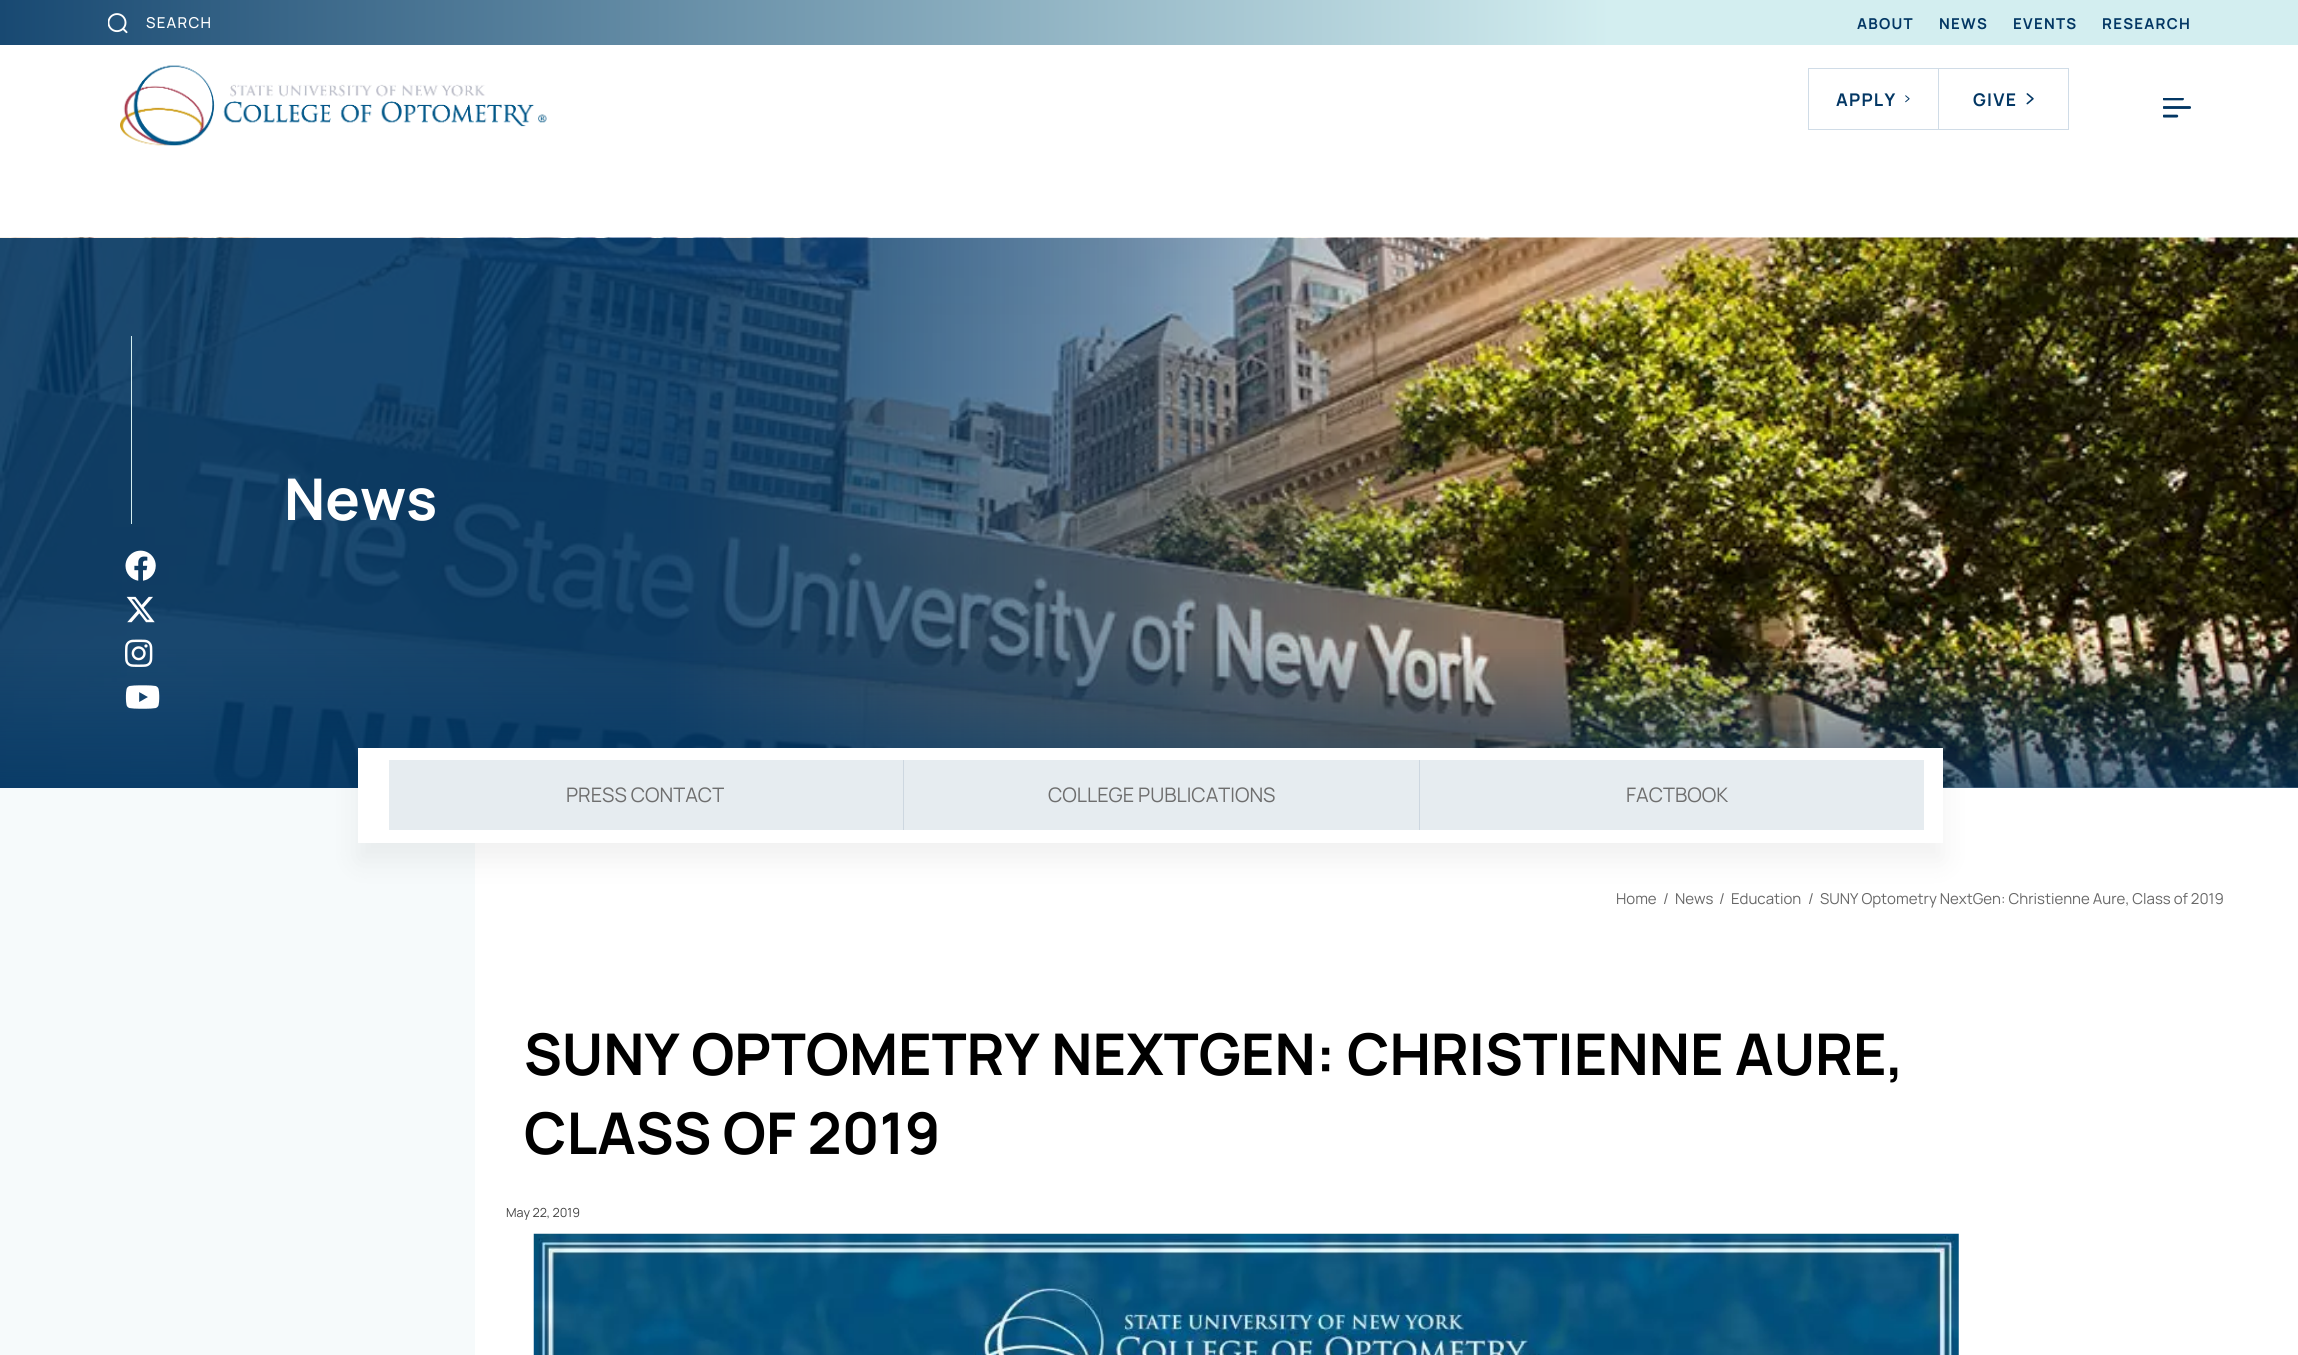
import math
import cairo

surface = cairo.ImageSurface(cairo.FORMAT_RGB24, 2298, 1355)
ctx = cairo.Context(surface)
options = cairo.FontOptions()
options.set_hint_metrics(cairo.HINT_METRICS_OFF)
options.set_hint_style(cairo.HINT_STYLE_NONE)
ctx.set_font_options(options)
ctx.set_miter_limit(4)


def spaced_text(x, y, s, letter, word):
    ctx.move_to(x, y)
    for ch in s:
        ctx.show_text(ch)
        ctx.rel_move_to(letter + word * (ch == ' '), 0)


def round_rect(x, y, w, h, r):
    ctx.new_sub_path()
    for i, (u, v) in enumerate([(x + w - r, y + h - r), (x + r, y + h - r), (x + r, y + r), (x + w - r, y + r)]):
        ctx.arc(u, v, r, i * math.pi / 2, (i + 1) * math.pi / 2)
    ctx.close_path()


def shadow(x, y, w, h, r, blur, alpha):
    ctx.push_group_with_content(cairo.CONTENT_ALPHA)
    ctx.set_operator(cairo.OPERATOR_SOURCE)
    for i in range(15, -16, -2):
        e = blur * i / 6
        if min(w, h) + 2 * e > 0:
            ctx.set_source_rgba(0, 0, 0, alpha * math.erfc((i - 1) / 8.5) / 2)
            round_rect(x - e, y - e, w + 2 * e, h + 2 * e, max(0, min(r + e + blur * .6, min(w, h) / 2 + e)))
            ctx.fill()
    ctx.mask(ctx.pop_group())


def picture(path, x, y, w, h):
    ctx.save()
    ctx.set_source_surface(cairo.ImageSurface.create_from_png(path), x, y)
    ctx.rectangle(x, y, w, h)
    ctx.fill()
    ctx.restore()


ctx.set_source_rgb(1, 1, 1)
ctx.paint()
gradient = cairo.LinearGradient(0, 23, 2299, 22)
gradient.add_color_stop_rgba(0, 0.094, 0.286, 0.447, 1)
gradient.add_color_stop_rgba(0.7, 0.827, 0.933, 0.941, 1)
ctx.set_source(gradient)
ctx.rectangle(0, 0, 2298, 45)
ctx.fill()
picture("img1.png", 108, 13, 20, 21)
ctx.select_font_face("Manrope Medium")
ctx.set_font_size(15)
ctx.set_source_rgb(1, 1, 1)
spaced_text(146, 28, "SEARCH", 1.25, 0)
ctx.select_font_face("Manrope", cairo.FONT_SLANT_NORMAL, cairo.FONT_WEIGHT_BOLD)
ctx.set_source_rgb(0.012, 0.216, 0.392)
spaced_text(1857, 29, "ABOUT", 1.25, 0)
spaced_text(1939, 29, "NEWS", 1.25, 0)
spaced_text(2013, 29, "EVENTS", 1.25, 0)
spaced_text(2102, 29, "RESEARCH", 1.25, 0)
picture("img2.png", 120, 65, 427, 81)
ctx.rectangle(1808.5, 68.5, 130, 61)
ctx.set_source_rgb(0.816, 0.863, 0.906)
ctx.set_line_width(1)
ctx.stroke()
ctx.set_font_size(17.5)
ctx.set_source_rgb(0.012, 0.216, 0.392)
spaced_text(1836, 106, "APPLY", 1.25, 0)
picture("img3.png", 1905, 95, 5, 8)
ctx.set_source_rgb(0.816, 0.863, 0.906)
ctx.rectangle(1939, 68, 130, 1)
ctx.fill()
ctx.rectangle(2068, 68, 1, 62)
ctx.fill()
ctx.rectangle(1939, 129, 130, 1)
ctx.fill()
ctx.set_source_rgb(0.012, 0.216, 0.392)
spaced_text(1973, 106, "GIVE", 1.25, 0)
picture("img4.png", 2026, 93, 8, 12)
picture("img5.png", 2163, 98, 28, 20)
ctx.set_source_rgb(0.961, 0.98, 0.984)
ctx.rectangle(0, 787, 475, 568)
ctx.fill()
picture("img6.png", 0, 237, 2298, 551)
gradient = cairo.LinearGradient(0, 513, 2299, 512)
gradient.add_color_stop_rgba(0.29, 0.012, 0.216, 0.392, 0.9)
gradient.add_color_stop_rgba(0.49, 0.012, 0.216, 0.392, 0.5)
gradient.add_color_stop_rgba(0.65, 0.012, 0.216, 0.392, 0)
ctx.set_source(gradient)
ctx.rectangle(0, 238, 1479, 550)
ctx.fill()
gradient = cairo.LinearGradient(1149, 788, 1149, 238)
gradient.add_color_stop_rgba(0, 0.012, 0.216, 0.392, 0.7)
gradient.add_color_stop_rgba(0.26, 0.012, 0.216, 0.392, 0)
ctx.set_source(gradient)
ctx.rectangle(0, 649, 2298, 139)
ctx.fill()
ctx.set_source_rgb(0.827, 0.933, 0.941)
ctx.rectangle(131, 336, 1, 188)
ctx.fill()
picture("img7.png", 125, 550, 31, 31)
picture("img8.png", 126, 596, 29, 27)
picture("img9.png", 125, 639, 28, 28)
picture("img10.png", 125, 685, 35, 24)
ctx.set_font_size(57.5)
ctx.set_source_rgb(1, 1, 1)
ctx.move_to(284, 520)
ctx.show_text("News")
ctx.set_source_rgb(0, 0, 0)
shadow(358, 766, 1585, 95, 0, 15, 0.06)
ctx.set_source_rgb(1, 1, 1)
ctx.rectangle(358, 748, 1585, 95)
ctx.fill()
ctx.set_source_rgb(0.902, 0.922, 0.941)
ctx.rectangle(389, 760, 514, 70)
ctx.fill()
ctx.set_source_rgb(0.804, 0.843, 0.878)
ctx.rectangle(903, 760, 1, 70)
ctx.fill()
ctx.select_font_face("Manrope")
ctx.set_font_size(20)
ctx.set_source_rgb(0.431, 0.431, 0.431)
ctx.move_to(566, 802)
ctx.show_text("PRESS CONTACT")
ctx.set_source_rgb(0.902, 0.922, 0.941)
ctx.rectangle(904, 760, 515, 70)
ctx.fill()
ctx.set_source_rgb(0.804, 0.843, 0.878)
ctx.rectangle(1419, 760, 1, 70)
ctx.fill()
ctx.set_source_rgb(0.431, 0.431, 0.431)
ctx.move_to(1048, 802)
ctx.show_text("COLLEGE PUBLICATIONS")
ctx.set_source_rgb(0.902, 0.922, 0.941)
ctx.rectangle(1420, 760, 504, 70)
ctx.fill()
ctx.set_source_rgb(0.431, 0.431, 0.431)
ctx.move_to(1626, 802)
ctx.show_text("FACTBOOK")
ctx.set_font_size(15)
ctx.set_source_rgb(0.404, 0.404, 0.404)
ctx.move_to(1616, 904)
ctx.show_text("Home")
ctx.move_to(1663, 904)
ctx.show_text("/")
ctx.move_to(1675, 904)
ctx.show_text("News")
ctx.move_to(1719, 904)
ctx.show_text("/")
ctx.move_to(1731, 904)
ctx.show_text("Education")
ctx.move_to(1808, 904)
ctx.show_text("/")
ctx.move_to(1820, 904)
ctx.show_text("SUNY Optometry NextGen: Christienne Aure, Class of 2019")
ctx.select_font_face("Manrope", cairo.FONT_SLANT_NORMAL, cairo.FONT_WEIGHT_BOLD)
ctx.set_font_size(57.5)
ctx.set_source_rgb(0, 0, 0)
ctx.move_to(524, 1075)
ctx.show_text("SUNY OPTOMETRY NEXTGEN: CHRISTIENNE AURE,")
ctx.move_to(524, 1154)
ctx.show_text("CLASS OF 2019")
ctx.select_font_face("Manrope")
ctx.set_font_size(12.5)
ctx.set_source_rgb(0.267, 0.267, 0.267)
ctx.move_to(506, 1217)
ctx.show_text("May 22, 2019")
picture("img11.png", 533, 1233, 1426, 122)
surface.write_to_png("page.png")
